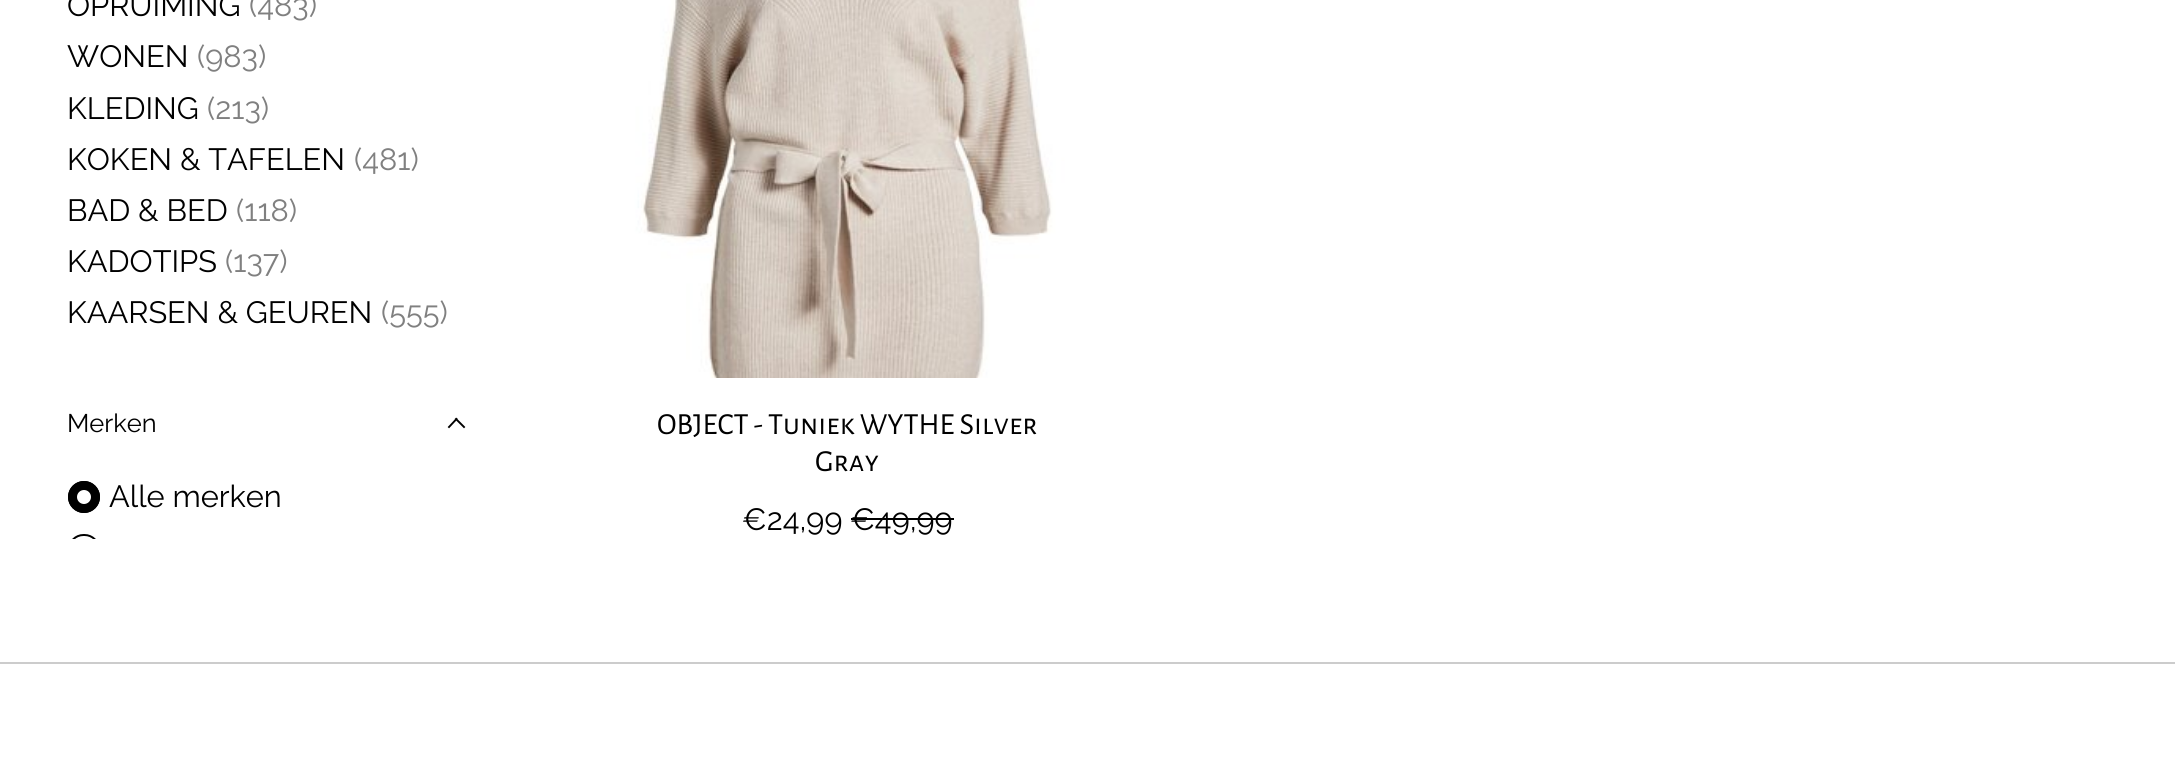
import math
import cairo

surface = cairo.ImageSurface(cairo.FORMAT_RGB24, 2175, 780)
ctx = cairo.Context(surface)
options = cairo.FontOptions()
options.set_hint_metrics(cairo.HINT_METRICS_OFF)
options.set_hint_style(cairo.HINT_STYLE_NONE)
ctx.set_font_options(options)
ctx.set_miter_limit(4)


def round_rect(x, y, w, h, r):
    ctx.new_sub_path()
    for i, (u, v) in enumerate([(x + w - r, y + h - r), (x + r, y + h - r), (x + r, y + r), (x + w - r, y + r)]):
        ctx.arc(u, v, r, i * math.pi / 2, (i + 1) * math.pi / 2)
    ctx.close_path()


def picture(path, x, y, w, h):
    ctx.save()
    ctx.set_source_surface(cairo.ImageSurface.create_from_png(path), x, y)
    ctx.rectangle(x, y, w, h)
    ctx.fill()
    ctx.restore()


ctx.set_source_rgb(1, 1, 1)
ctx.paint()
ctx.select_font_face("Raleway")
ctx.set_font_size(30.75)
ctx.set_source_rgb(0, 0, 0)
ctx.move_to(67, 16)
ctx.show_text("OPRUIMING")
ctx.set_source_rgb(0.502, 0.502, 0.502)
ctx.move_to(249, 16)
ctx.show_text("(483)")
ctx.set_source_rgb(0, 0, 0)
ctx.move_to(67, 67)
ctx.show_text("WONEN")
ctx.set_source_rgb(0.502, 0.502, 0.502)
ctx.move_to(197, 67)
ctx.show_text("(983)")
ctx.set_source_rgb(0, 0, 0)
ctx.move_to(67, 119)
ctx.show_text("KLEDING")
ctx.set_source_rgb(0.502, 0.502, 0.502)
ctx.move_to(207, 119)
ctx.show_text("(213)")
ctx.set_source_rgb(0, 0, 0)
ctx.move_to(67, 170)
ctx.show_text("KOKEN & TAFELEN")
ctx.set_source_rgb(0.502, 0.502, 0.502)
ctx.move_to(354, 170)
ctx.show_text("(481)")
ctx.set_source_rgb(0, 0, 0)
ctx.move_to(67, 221)
ctx.show_text("BAD & BED")
ctx.set_source_rgb(0.502, 0.502, 0.502)
ctx.move_to(236, 221)
ctx.show_text("(118)")
ctx.set_source_rgb(0, 0, 0)
ctx.move_to(67, 272)
ctx.show_text("KADOTIPS")
ctx.set_source_rgb(0.502, 0.502, 0.502)
ctx.move_to(225, 272)
ctx.show_text("(137)")
ctx.set_source_rgb(0, 0, 0)
ctx.move_to(67, 323)
ctx.show_text("KAARSEN & GEUREN")
ctx.set_source_rgb(0.502, 0.502, 0.502)
ctx.move_to(381, 323)
ctx.show_text("(555)")
ctx.set_font_size(25.5)
ctx.set_source_rgb(0, 0, 0)
ctx.move_to(67, 432)
ctx.show_text("Merken")
ctx.new_path()
ctx.move_to(449, 427)
ctx.line_to(456.5, 419)
ctx.move_to(464, 427)
ctx.line_to(456, 419)
ctx.set_line_width(1.9)
ctx.set_line_cap(cairo.LINE_CAP_SQUARE)
ctx.stroke()
ctx.arc(84, 497, 16, 0, 2 * math.pi)
ctx.fill()
ctx.set_source_rgb(1, 1, 1)
ctx.arc(84, 497, 7, 0, 2 * math.pi)
ctx.fill()
ctx.arc(84, 497, 15, 0, 2 * math.pi)
ctx.set_source_rgb(0, 0, 0)
ctx.set_line_width(2)
ctx.set_line_cap(cairo.LINE_CAP_BUTT)
ctx.stroke()
ctx.set_font_size(30.75)
ctx.move_to(109, 507)
ctx.show_text("Alle merken")
ctx.save()
ctx.rectangle(49, 0, 438, 539)
ctx.clip()
round_rect(69, 535, 30, 29, 14.5)
ctx.stroke()
ctx.restore()
picture("img1.png", 611, 0, 472, 378)
ctx.select_font_face("Alegreya Sans SC")
ctx.move_to(657, 434)
ctx.show_text("OBJECT - Tuniek WYTHE Silver")
ctx.move_to(815, 471)
ctx.show_text("Gray")
ctx.select_font_face("Raleway")
ctx.move_to(742, 530)
ctx.show_text("€24,99 €49,99")
ctx.rectangle(851, 518, 103, 2)
ctx.fill()
ctx.set_source_rgb(0.8, 0.8, 0.8)
ctx.rectangle(0, 662, 2175, 2)
ctx.fill()
surface.write_to_png("page.png")
